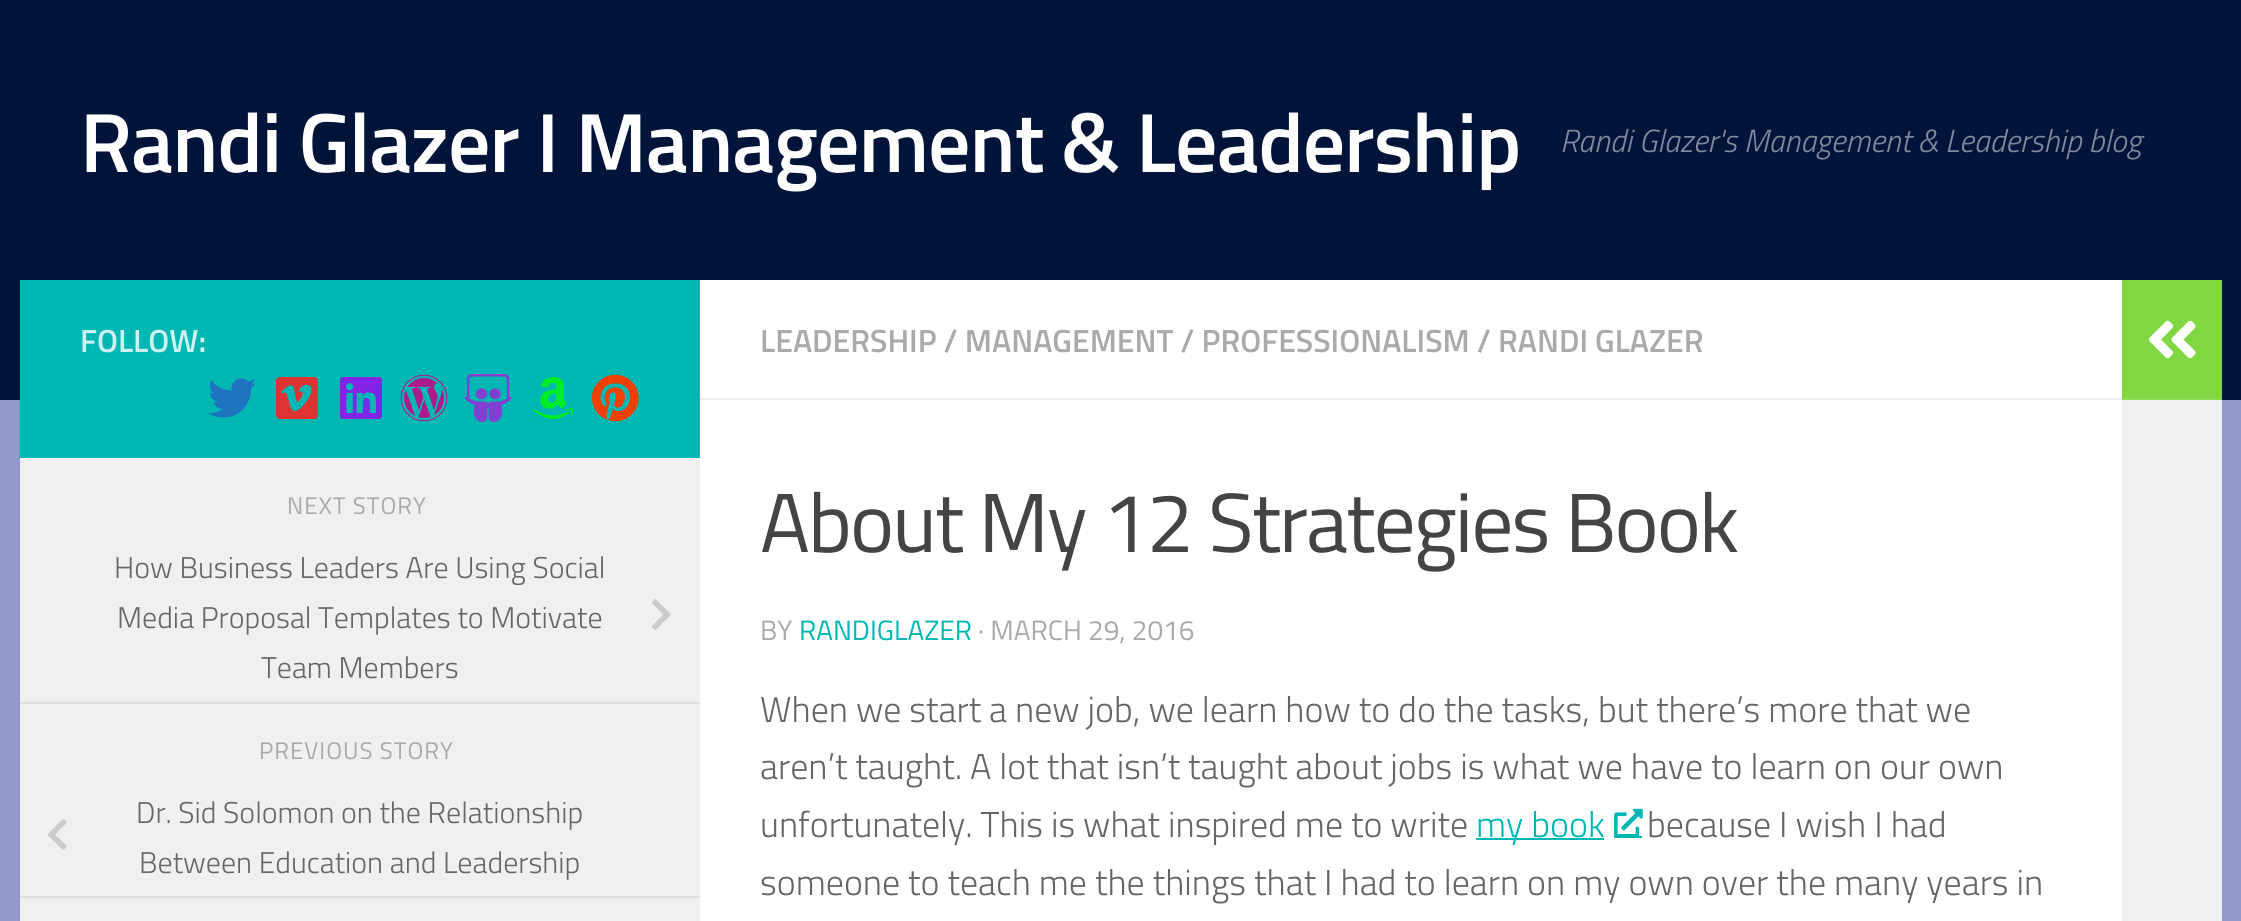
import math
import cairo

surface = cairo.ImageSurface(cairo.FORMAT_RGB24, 2241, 921)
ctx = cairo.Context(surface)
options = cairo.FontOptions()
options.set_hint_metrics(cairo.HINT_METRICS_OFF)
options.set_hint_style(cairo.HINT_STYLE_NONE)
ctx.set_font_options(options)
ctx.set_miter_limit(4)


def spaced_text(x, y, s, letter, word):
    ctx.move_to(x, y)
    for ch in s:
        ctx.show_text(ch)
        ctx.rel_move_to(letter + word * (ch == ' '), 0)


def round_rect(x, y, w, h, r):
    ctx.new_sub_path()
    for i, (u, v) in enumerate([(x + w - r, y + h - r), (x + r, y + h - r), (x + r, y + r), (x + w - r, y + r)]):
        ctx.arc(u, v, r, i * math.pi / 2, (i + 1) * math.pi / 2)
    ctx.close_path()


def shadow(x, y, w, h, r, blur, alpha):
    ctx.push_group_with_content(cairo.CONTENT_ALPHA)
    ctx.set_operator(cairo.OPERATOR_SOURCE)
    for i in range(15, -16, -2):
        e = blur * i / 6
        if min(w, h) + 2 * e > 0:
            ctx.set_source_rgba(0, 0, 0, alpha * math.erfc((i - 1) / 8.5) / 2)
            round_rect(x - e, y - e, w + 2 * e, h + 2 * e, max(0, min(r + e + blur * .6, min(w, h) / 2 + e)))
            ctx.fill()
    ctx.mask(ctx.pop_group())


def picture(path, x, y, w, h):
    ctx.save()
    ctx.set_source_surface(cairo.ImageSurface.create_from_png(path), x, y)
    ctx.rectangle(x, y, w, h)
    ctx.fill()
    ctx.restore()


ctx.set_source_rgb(0.58, 0.6, 0.8)
ctx.paint()
ctx.set_source_rgb(0, 0, 0)
shadow(20, 282, 2202, 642, 0, 1, 0.1)
ctx.set_source_rgb(0, 0.082, 0.227)
ctx.rectangle(0, 0, 2241, 400)
ctx.fill()
ctx.select_font_face("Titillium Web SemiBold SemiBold")
ctx.set_font_size(84)
ctx.set_source_rgb(1, 1, 1)
spaced_text(80, 172, "Randi Glazer I Management & Leadership", -1, 0)
ctx.select_font_face("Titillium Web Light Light", cairo.FONT_SLANT_ITALIC)
ctx.set_font_size(32)
ctx.set_source_rgb(0.502, 0.541, 0.616)
ctx.move_to(1560, 152)
ctx.show_text("Randi Glazer's Management & Leadership blog")
ctx.set_source_rgb(1, 1, 1)
ctx.rectangle(700, 280, 1422, 641)
ctx.fill()
ctx.set_source_rgb(0.004, 0.718, 0.706)
ctx.rectangle(20, 280, 680, 178)
ctx.fill()
ctx.select_font_face("Titillium Web SemiBold SemiBold")
ctx.set_source_rgb(0.8, 0.945, 0.941)
ctx.move_to(80, 352)
ctx.show_text("FOLLOW:")
picture("img1.png", 208, 378, 48, 40)
picture("img2.png", 276, 377, 42, 42)
picture("img3.png", 340, 377, 42, 42)
picture("img4.png", 400, 374, 48, 48)
picture("img5.png", 464, 374, 48, 48)
picture("img6.png", 532, 377, 42, 42)
picture("img7.png", 592, 374, 47, 48)
ctx.set_source_rgb(0.941, 0.941, 0.941)
ctx.rectangle(20, 458, 680, 463)
ctx.fill()
ctx.select_font_face("Titillium Web")
ctx.set_font_size(24)
ctx.set_source_rgb(0.667, 0.667, 0.667)
spaced_text(287, 514, "NEXT STORY", 1, 0)
ctx.set_source_rgb(0.867, 0.867, 0.867)
ctx.rectangle(20, 702, 680, 2)
ctx.fill()
ctx.select_font_face("Titillium Web Light Light")
ctx.set_font_size(30)
ctx.set_source_rgb(0.4, 0.4, 0.4)
ctx.move_to(114, 578)
ctx.show_text("How Business Leaders Are Using Social")
ctx.move_to(117, 628)
ctx.show_text("Media Proposal Templates to Motivate")
picture("img8.png", 652, 599, 19, 31)
ctx.move_to(261, 678)
ctx.show_text("Team Members")
ctx.select_font_face("Titillium Web")
ctx.set_font_size(24)
ctx.set_source_rgb(0.667, 0.667, 0.667)
spaced_text(259, 759, "PREVIOUS STORY", 1, 0)
ctx.set_source_rgb(0.867, 0.867, 0.867)
ctx.rectangle(20, 896, 680, 2)
ctx.fill()
ctx.select_font_face("Titillium Web Light Light")
ctx.set_font_size(30)
ctx.set_source_rgb(0.4, 0.4, 0.4)
ctx.move_to(136, 823)
ctx.show_text("Dr. Sid Solomon on the Relationship")
picture("img9.png", 48, 819, 19, 31)
ctx.move_to(139, 873)
ctx.show_text("Between Education and Leadership")
ctx.set_source_rgb(0.933, 0.933, 0.933)
ctx.rectangle(700, 398, 1422, 2)
ctx.fill()
ctx.select_font_face("Titillium Web SemiBold SemiBold")
ctx.set_font_size(32)
ctx.set_source_rgb(0.667, 0.667, 0.667)
ctx.move_to(760, 352)
ctx.show_text("LEADERSHIP / MANAGEMENT / PROFESSIONALISM / RANDI GLAZER")
ctx.select_font_face("Titillium Web")
ctx.set_font_size(83.8)
ctx.set_source_rgb(0.267, 0.267, 0.267)
spaced_text(760, 552, "About My 12 Strategies Book", -2, 0)
ctx.set_font_size(28)
ctx.set_source_rgb(0.667, 0.667, 0.667)
ctx.move_to(760, 640)
ctx.show_text("BY")
ctx.set_source_rgb(0.004, 0.718, 0.706)
ctx.move_to(799, 640)
ctx.show_text("RANDIGLAZER")
ctx.set_source_rgb(0.667, 0.667, 0.667)
ctx.move_to(978, 640)
ctx.show_text("· MARCH 29, 2016")
ctx.select_font_face("Titillium Web Light Light")
ctx.set_font_size(36)
ctx.set_source_rgb(0.4, 0.4, 0.4)
ctx.move_to(760, 722)
ctx.show_text("When we start a new job, we learn how to do the tasks, but there’s more that we")
ctx.move_to(760, 779)
ctx.show_text("aren’t taught. A lot that isn’t taught about jobs is what we have to learn on our own")
ctx.move_to(760, 837)
ctx.show_text("unfortunately. This is what inspired me to write")
ctx.set_source_rgb(0.004, 0.718, 0.706)
ctx.rectangle(1476, 838, 128, 2)
ctx.fill()
ctx.move_to(1476, 837)
ctx.show_text("my book")
ctx.rectangle(1614, 836, 28, 2)
ctx.fill()
picture("img10.png", 1614, 808, 29, 28)
ctx.set_source_rgb(0.4, 0.4, 0.4)
ctx.move_to(1647, 837)
ctx.show_text("because I wish I had")
ctx.move_to(760, 895)
ctx.show_text("someone to teach me the things that I had to learn on my own over the many years in")
ctx.set_source_rgb(0.506, 0.843, 0.259)
ctx.rectangle(2122, 280, 100, 118)
ctx.fill()
ctx.set_source_rgb(0.557, 0.859, 0.333)
ctx.rectangle(2122, 398, 100, 2)
ctx.fill()
picture("img11.png", 2148, 320, 48, 39)
ctx.set_source_rgb(0.941, 0.941, 0.941)
ctx.rectangle(2122, 400, 100, 521)
ctx.fill()
surface.write_to_png("page.png")
